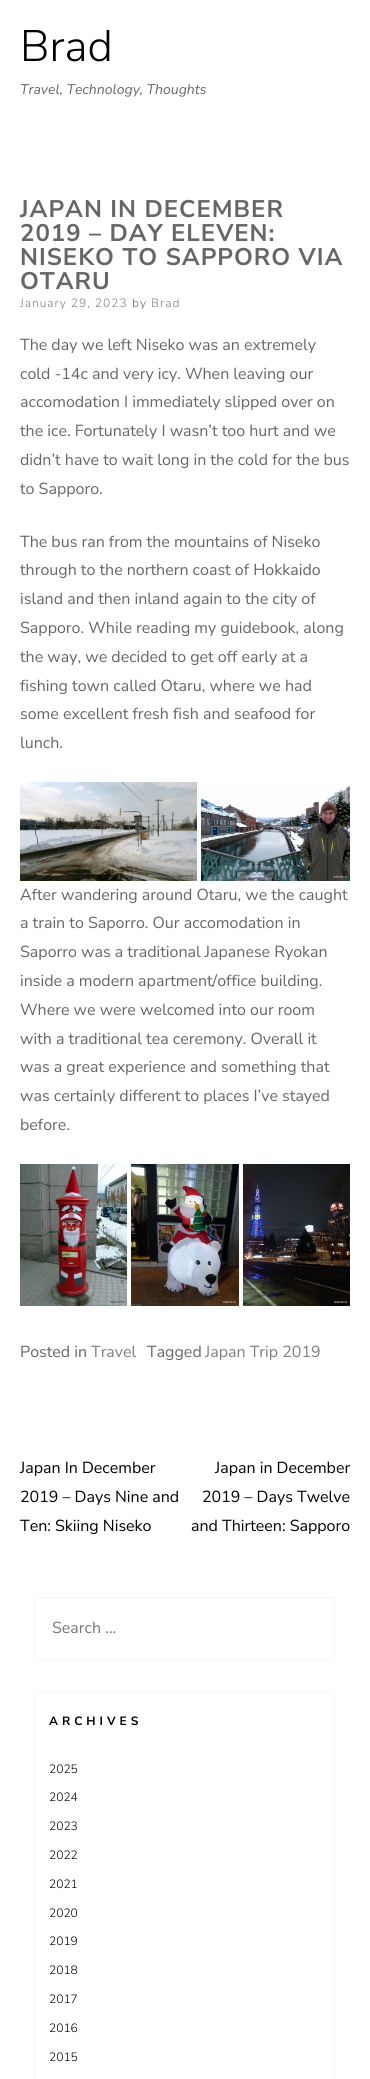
import math
import cairo

surface = cairo.ImageSurface(cairo.FORMAT_RGB24, 370, 2079)
ctx = cairo.Context(surface)
options = cairo.FontOptions()
options.set_hint_metrics(cairo.HINT_METRICS_OFF)
options.set_hint_style(cairo.HINT_STYLE_NONE)
ctx.set_font_options(options)
ctx.set_miter_limit(4)


def spaced_text(x, y, s, letter, word):
    ctx.move_to(x, y)
    for ch in s:
        ctx.show_text(ch)
        ctx.rel_move_to(letter + word * (ch == ' '), 0)


def picture(path, x, y, w, h):
    ctx.save()
    ctx.set_source_surface(cairo.ImageSurface.create_from_png(path), x, y)
    ctx.rectangle(x, y, w, h)
    ctx.fill()
    ctx.restore()


ctx.set_source_rgb(1, 1, 1)
ctx.paint()
ctx.select_font_face("Nunito Sans Light")
ctx.set_font_size(44)
ctx.set_source_rgb(0, 0, 0)
ctx.move_to(20, 61)
ctx.show_text("Brad")
ctx.select_font_face("Nunito Sans", cairo.FONT_SLANT_ITALIC)
ctx.set_font_size(14)
ctx.set_source_rgb(0.4, 0.4, 0.4)
ctx.move_to(20, 94)
ctx.show_text("Travel, Technology, Thoughts")
ctx.select_font_face("Nunito Sans", cairo.FONT_SLANT_NORMAL, cairo.FONT_WEIGHT_BOLD)
ctx.set_font_size(24)
spaced_text(20, 217, "JAPAN IN DECEMBER", 1, 0)
spaced_text(20, 241, "2019 – DAY ELEVEN:", 1, 0)
spaced_text(20, 265, "NISEKO TO SAPPORO VIA", 1, 0)
spaced_text(20, 289, "OTARU", 1, 0)
ctx.select_font_face("Nunito Sans Light")
ctx.set_font_size(12)
ctx.set_source_rgb(0.498, 0.498, 0.498)
spaced_text(20, 307, "January 29, 2023", 1, 0)
ctx.set_source_rgb(0.4, 0.4, 0.4)
spaced_text(132, 307, "by", 1, 0)
ctx.set_source_rgb(0.498, 0.498, 0.498)
spaced_text(151, 307, "Brad", 1, 0)
ctx.select_font_face("Nunito Sans")
ctx.set_font_size(16)
ctx.set_source_rgb(0.4, 0.4, 0.4)
ctx.move_to(20, 350)
ctx.show_text("The day we left Niseko was an extremely")
ctx.move_to(20, 379)
ctx.show_text("cold -14c and very icy. When leaving our")
ctx.move_to(20, 407)
ctx.show_text("accomodation I immediately slipped over on")
ctx.move_to(20, 436)
ctx.show_text("the ice. Fortunately I wasn’t too hurt and we")
ctx.move_to(20, 465)
ctx.show_text("didn’t have to wait long in the cold for the bus")
ctx.move_to(20, 494)
ctx.show_text("to Sapporo.")
ctx.move_to(20, 547)
ctx.show_text("The bus ran from the mountains of Niseko")
ctx.move_to(20, 575)
ctx.show_text("through to the northern coast of Hokkaido")
ctx.move_to(20, 604)
ctx.show_text("island and then inland again to the city of")
ctx.move_to(20, 633)
ctx.show_text("Sapporo. While reading my guidebook, along")
ctx.move_to(20, 662)
ctx.show_text("the way, we decided to get off early at a")
ctx.move_to(20, 691)
ctx.show_text("fishing town called Otaru, where we had")
ctx.move_to(20, 719)
ctx.show_text("some excellent fresh fish and seafood for")
ctx.move_to(20, 748)
ctx.show_text("lunch.")
picture("img1.png", 20, 782, 177, 99)
picture("img2.png", 201, 782, 149, 99)
ctx.move_to(20, 900)
ctx.show_text("After wandering around Otaru, we the caught")
ctx.move_to(20, 928)
ctx.show_text("a train to Saporro. Our accomodation in")
ctx.move_to(20, 957)
ctx.show_text("Saporro was a traditional Japanese Ryokan")
ctx.move_to(20, 986)
ctx.show_text("inside a modern apartment/office building.")
ctx.move_to(20, 1015)
ctx.show_text("Where we were welcomed into our room")
ctx.move_to(20, 1044)
ctx.show_text("with a traditional tea ceremony. Overall it")
ctx.move_to(20, 1072)
ctx.show_text("was a great experience and something that")
ctx.move_to(20, 1101)
ctx.show_text("was certainly different to places I’ve stayed")
ctx.move_to(20, 1130)
ctx.show_text("before.")
picture("img3.png", 20, 1164, 107, 142)
picture("img4.png", 131, 1164, 108, 142)
picture("img5.png", 243, 1164, 107, 142)
ctx.move_to(20, 1357)
ctx.show_text("Posted in")
ctx.set_source_rgb(0.498, 0.498, 0.498)
ctx.move_to(91, 1357)
ctx.show_text("Travel")
ctx.set_source_rgb(0.4, 0.4, 0.4)
ctx.move_to(147, 1357)
ctx.show_text("Tagged")
ctx.set_source_rgb(0.498, 0.498, 0.498)
ctx.move_to(205, 1357)
ctx.show_text("Japan Trip 2019")
ctx.set_source_rgb(0, 0, 0)
ctx.move_to(20, 1473)
ctx.show_text("Japan In December")
ctx.move_to(20, 1502)
ctx.show_text("2019 – Days Nine and")
ctx.move_to(20, 1531)
ctx.show_text("Ten: Skiing Niseko")
ctx.move_to(215, 1473)
ctx.show_text("Japan in December")
ctx.move_to(202, 1502)
ctx.show_text("2019 – Days Twelve")
ctx.move_to(191, 1531)
ctx.show_text("and Thirteen: Sapporo")
ctx.rectangle(35.5, 1597.5, 299, 62)
ctx.set_source_rgb(0.961, 0.961, 0.961)
ctx.set_line_width(1)
ctx.stroke()
ctx.set_source_rgb(0.459, 0.459, 0.459)
ctx.move_to(52, 1633)
ctx.show_text("Search …")
ctx.rectangle(35.5, 1692.5, 299, 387)
ctx.set_source_rgb(0.961, 0.961, 0.961)
ctx.stroke()
ctx.select_font_face("Nunito Sans", cairo.FONT_SLANT_NORMAL, cairo.FONT_WEIGHT_BOLD)
ctx.set_font_size(12)
ctx.set_source_rgb(0, 0, 0)
spaced_text(49, 1725, "ARCHIVES", 4, 0)
ctx.select_font_face("Nunito Sans Light")
ctx.move_to(49, 1773)
ctx.show_text("2025")
ctx.move_to(49, 1801)
ctx.show_text("2024")
ctx.move_to(49, 1830)
ctx.show_text("2023")
ctx.move_to(49, 1859)
ctx.show_text("2022")
ctx.move_to(49, 1888)
ctx.show_text("2021")
ctx.move_to(49, 1917)
ctx.show_text("2020")
ctx.move_to(49, 1945)
ctx.show_text("2019")
ctx.move_to(49, 1974)
ctx.show_text("2018")
ctx.move_to(49, 2003)
ctx.show_text("2017")
ctx.move_to(49, 2032)
ctx.show_text("2016")
ctx.move_to(49, 2061)
ctx.show_text("2015")
surface.write_to_png("page.png")
